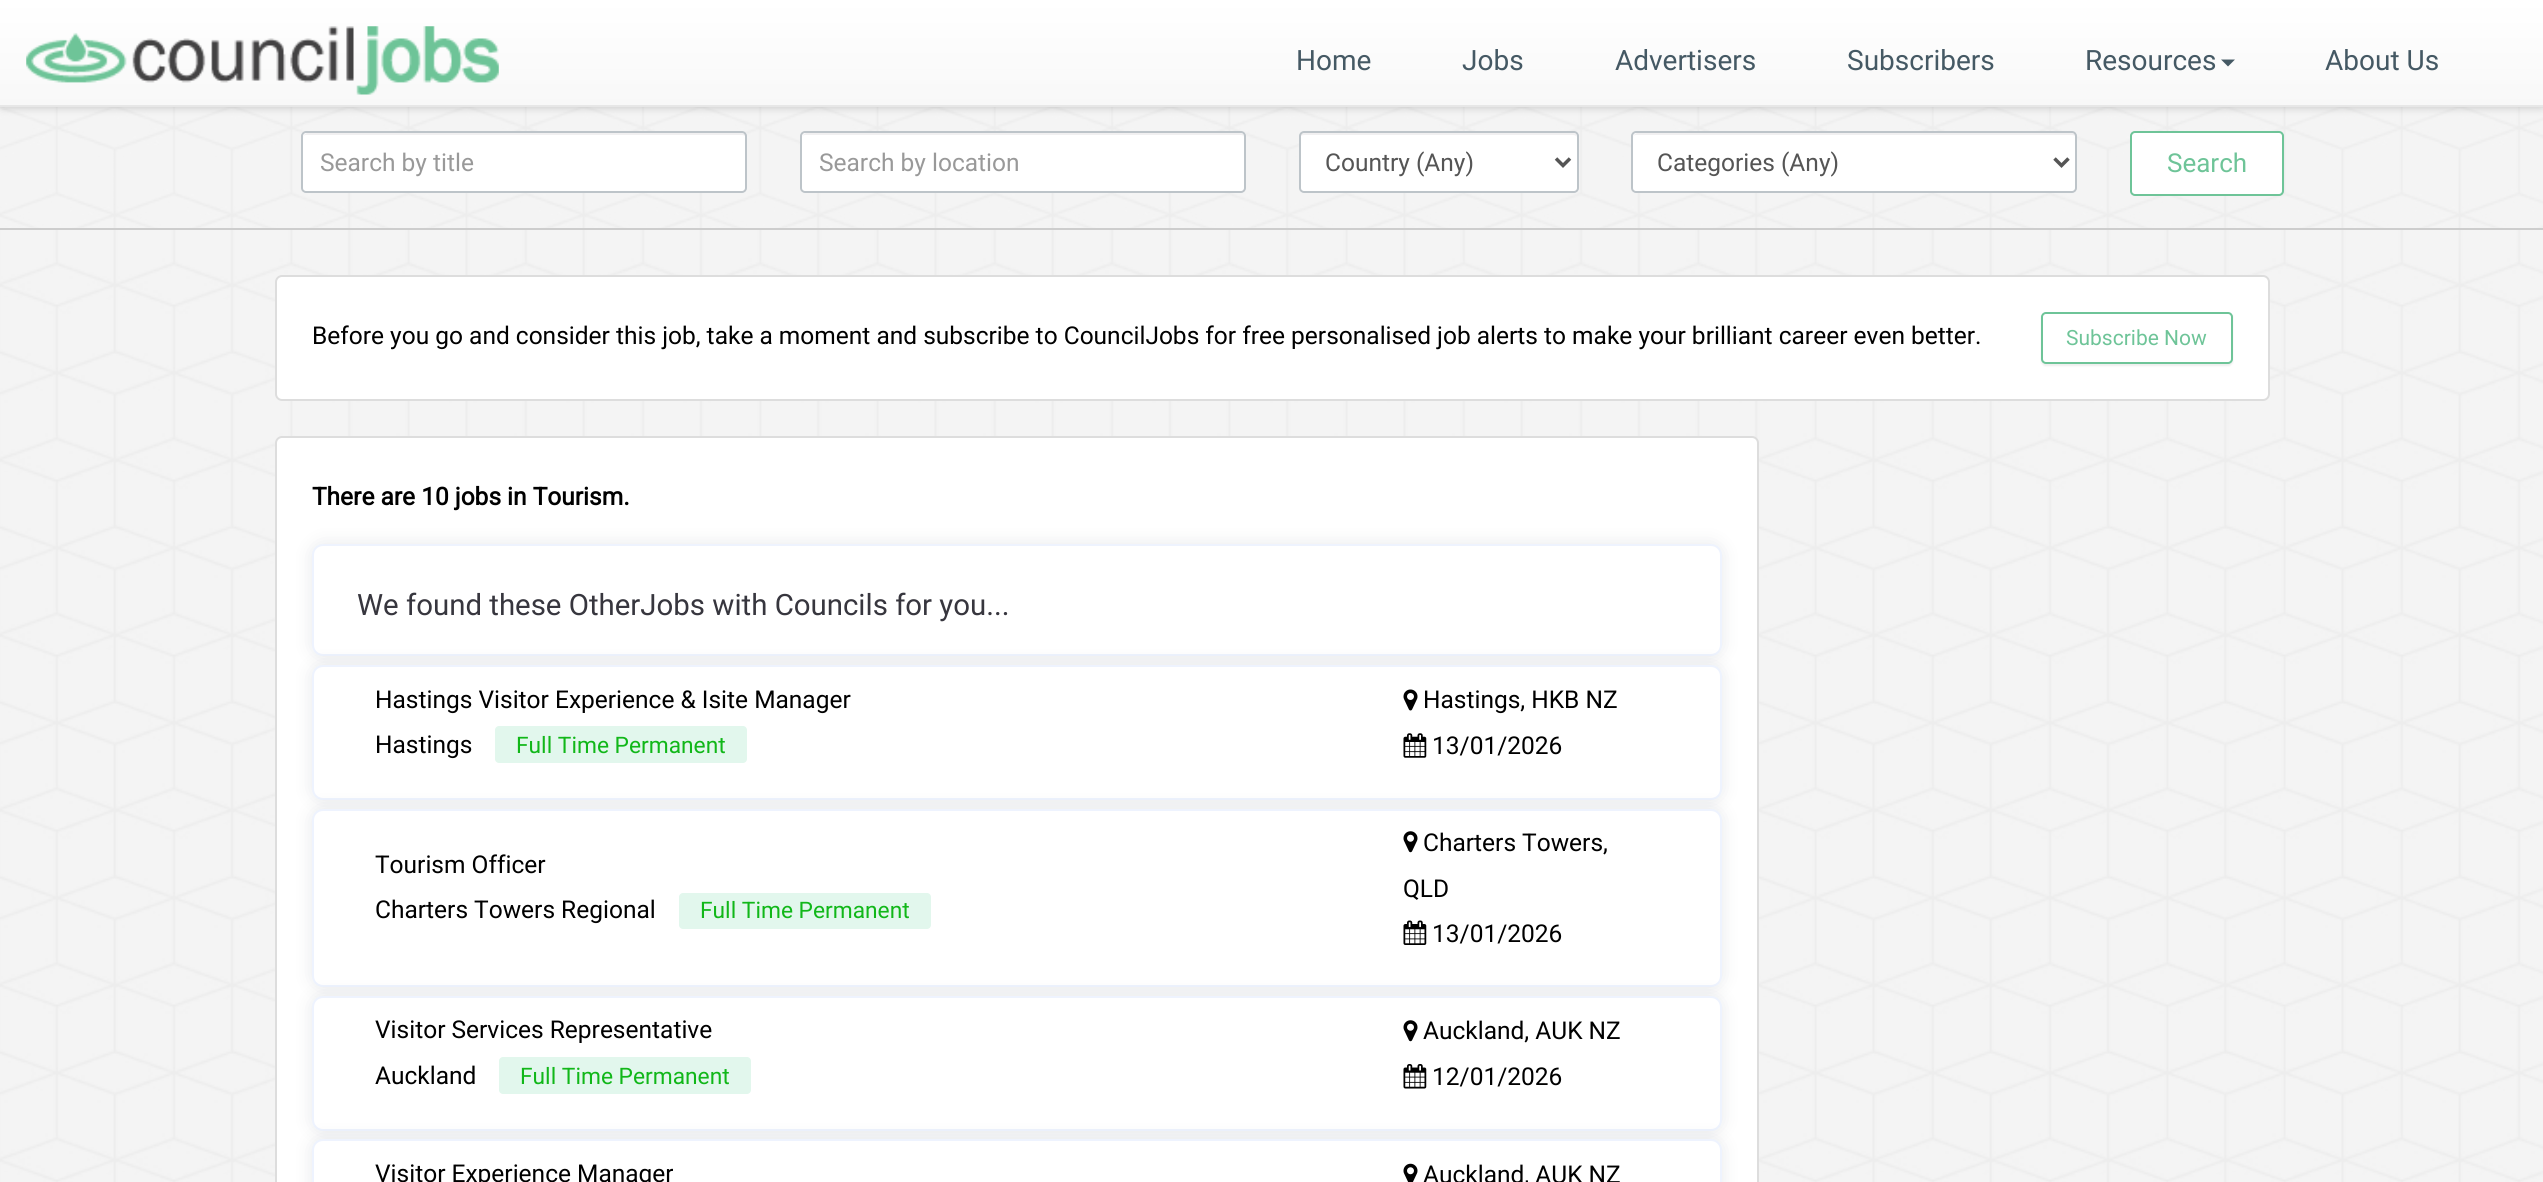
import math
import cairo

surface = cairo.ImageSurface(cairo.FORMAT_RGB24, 2543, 1182)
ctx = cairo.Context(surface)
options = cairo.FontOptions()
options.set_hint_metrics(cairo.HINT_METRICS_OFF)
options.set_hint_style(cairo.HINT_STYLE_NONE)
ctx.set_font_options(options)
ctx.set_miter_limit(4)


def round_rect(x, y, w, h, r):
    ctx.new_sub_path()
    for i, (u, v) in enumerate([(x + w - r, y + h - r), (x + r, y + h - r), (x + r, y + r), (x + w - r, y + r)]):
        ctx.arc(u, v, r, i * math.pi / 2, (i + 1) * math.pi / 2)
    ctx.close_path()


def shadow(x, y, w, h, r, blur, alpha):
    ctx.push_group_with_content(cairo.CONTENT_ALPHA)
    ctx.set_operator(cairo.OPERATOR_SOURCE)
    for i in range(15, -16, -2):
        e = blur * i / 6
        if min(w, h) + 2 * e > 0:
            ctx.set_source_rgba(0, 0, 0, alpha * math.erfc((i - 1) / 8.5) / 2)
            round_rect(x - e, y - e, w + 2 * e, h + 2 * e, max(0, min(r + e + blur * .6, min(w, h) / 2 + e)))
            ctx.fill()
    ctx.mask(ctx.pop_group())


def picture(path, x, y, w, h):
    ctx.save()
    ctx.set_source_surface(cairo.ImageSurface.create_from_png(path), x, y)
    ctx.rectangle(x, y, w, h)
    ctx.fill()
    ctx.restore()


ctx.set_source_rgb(1, 1, 1)
ctx.paint()
picture("img1.png", 0, 230, 2543, 952)
picture("img3.png", 0, 107, 2543, 121)
ctx.set_source_rgb(0, 0, 0)
shadow(4, 5, 2537, 98, 0, 5, 0.3)
shadow(0, 2, 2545, 107, 0, 4.5, 0.07)
gradient = cairo.LinearGradient(1272, 0, 1272, 105)
gradient.add_color_stop_rgba(0, 1, 1, 1, 1)
gradient.add_color_stop_rgba(1, 0.973, 0.973, 0.973, 1)
ctx.set_source(gradient)
ctx.rectangle(0, 0, 2543, 105)
ctx.fill()
ctx.set_source_rgb(0.906, 0.906, 0.906)
ctx.rectangle(0, 105, 2543, 2)
ctx.fill()
picture("img2.png", 26, 26, 473, 69)
ctx.select_font_face("Roboto")
ctx.set_font_size(28)
ctx.set_source_rgb(0.271, 0.349, 0.392)
ctx.move_to(1296, 70)
ctx.show_text("Home")
ctx.move_to(1462, 70)
ctx.show_text("Jobs")
ctx.move_to(1615, 70)
ctx.show_text("Advertisers")
ctx.move_to(1847, 70)
ctx.show_text("Subscribers")
ctx.move_to(2085, 70)
ctx.show_text("Resources")
ctx.new_path()
ctx.move_to(2221, 59.5)
ctx.line_to(2235, 59.5)
ctx.line_to(2228, 66.5)
ctx.close_path()
ctx.fill()
ctx.move_to(2325, 70)
ctx.show_text("About Us")
ctx.set_source_rgb(0.804, 0.804, 0.804)
ctx.rectangle(0, 228, 2543, 2)
ctx.fill()
ctx.set_source_rgb(1, 1, 1)
round_rect(301, 131, 446, 62, 5)
ctx.fill()
ctx.set_source_rgb(0.945, 0.941, 0.945)
ctx.new_path()
ctx.move_to(306, 135)
ctx.line_to(742, 135)
ctx.curve_to(744, 135, 746, 136, 746, 138)
ctx.curve_to(746, 135, 745, 133, 742, 133)
ctx.line_to(307, 133)
ctx.line_to(305, 134)
ctx.line_to(304, 135)
ctx.line_to(303, 138)
ctx.curve_to(303, 136, 304, 135, 306, 135)
ctx.close_path()
ctx.fill()
round_rect(302, 132, 444, 60, 4)
ctx.set_source_rgb(0.741, 0.769, 0.788)
ctx.stroke()
ctx.set_font_size(24.5)
ctx.set_source_rgb(0.6, 0.6, 0.6)
ctx.move_to(320, 171)
ctx.show_text("Search by title")
ctx.set_source_rgb(1, 1, 1)
round_rect(800, 131, 446, 62, 5)
ctx.fill()
ctx.set_source_rgb(0.945, 0.941, 0.945)
ctx.new_path()
ctx.move_to(805, 135)
ctx.line_to(1241, 135)
ctx.curve_to(1243, 135, 1244, 136, 1244, 138)
ctx.curve_to(1244, 135, 1243, 133, 1240, 133)
ctx.line_to(806, 133)
ctx.line_to(804, 134)
ctx.line_to(803, 135)
ctx.line_to(802, 138)
ctx.curve_to(802, 136, 803, 135, 805, 135)
ctx.close_path()
ctx.fill()
round_rect(801, 132, 444, 60, 4)
ctx.set_source_rgb(0.741, 0.769, 0.788)
ctx.stroke()
ctx.set_source_rgb(0.6, 0.6, 0.6)
ctx.move_to(819, 171)
ctx.show_text("Search by location")
ctx.set_source_rgb(1, 1, 1)
round_rect(1299, 131, 280, 62, 5)
ctx.fill()
ctx.set_source_rgb(0.945, 0.941, 0.945)
ctx.new_path()
ctx.move_to(1304, 135)
ctx.line_to(1573, 135)
ctx.curve_to(1575, 135, 1577, 136, 1577, 138)
ctx.curve_to(1577, 135, 1576, 133, 1573, 133)
ctx.line_to(1304, 133)
ctx.curve_to(1301, 133, 1300, 135, 1300, 138)
ctx.curve_to(1300, 136, 1302, 135, 1304, 135)
ctx.close_path()
ctx.fill()
round_rect(1300, 132, 278, 60, 4)
ctx.set_source_rgb(0.741, 0.769, 0.788)
ctx.stroke()
ctx.new_path()
ctx.move_to(1556, 158.5)
ctx.line_to(1563, 165.5)
ctx.line_to(1570, 158.5)
ctx.set_source_rgb(0.333, 0.333, 0.333)
ctx.set_line_width(3.5)
ctx.stroke()
ctx.move_to(1325, 171)
ctx.show_text("Country (Any)")
ctx.set_source_rgb(1, 1, 1)
round_rect(1631, 131, 446, 62, 5)
ctx.fill()
ctx.set_source_rgb(0.945, 0.941, 0.945)
ctx.new_path()
ctx.move_to(1636, 135)
ctx.line_to(2072, 135)
ctx.curve_to(2074, 135, 2076, 136, 2076, 138)
ctx.curve_to(2076, 135, 2075, 133, 2072, 133)
ctx.line_to(1637, 133)
ctx.line_to(1635, 134)
ctx.line_to(1634, 135)
ctx.line_to(1633, 138)
ctx.curve_to(1633, 136, 1634, 135, 1636, 135)
ctx.close_path()
ctx.fill()
round_rect(1632, 132, 444, 60, 4)
ctx.set_source_rgb(0.741, 0.769, 0.788)
ctx.set_line_width(2)
ctx.stroke()
ctx.new_path()
ctx.move_to(2054.5, 158.5)
ctx.line_to(2061.5, 165.5)
ctx.line_to(2068.5, 158.5)
ctx.set_source_rgb(0.333, 0.333, 0.333)
ctx.set_line_width(3.5)
ctx.stroke()
ctx.move_to(1657, 171)
ctx.show_text("Categories (Any)")
ctx.set_source_rgb(1, 1, 1)
round_rect(2131, 132, 152, 63, 4)
ctx.fill_preserve()
ctx.set_source_rgb(0.431, 0.769, 0.596)
ctx.set_line_width(2)
ctx.stroke()
ctx.set_font_size(26)
ctx.move_to(2167, 172)
ctx.show_text("Search")
ctx.set_source_rgb(1, 1, 1)
round_rect(276, 276, 1993, 124, 6)
ctx.fill_preserve()
ctx.set_source_rgb(0.867, 0.867, 0.867)
ctx.stroke()
ctx.set_font_size(24.5)
ctx.set_source_rgb(0, 0, 0)
ctx.move_to(312, 344)
ctx.show_text("Before you go and consider this job, take a moment and subscribe to CouncilJobs for free personalised job alerts to make your brilliant career even better.")
ctx.set_source_rgb(0, 0, 0)
shadow(2041, 313, 192, 53, 5, 1, 0.07)
ctx.set_source_rgb(1, 1, 1)
round_rect(2042, 313, 190, 50, 4)
ctx.fill_preserve()
ctx.set_source_rgb(0.431, 0.769, 0.596)
ctx.stroke()
ctx.set_font_size(21)
ctx.move_to(2066, 345)
ctx.show_text("Subscribe Now")
ctx.set_source_rgb(1, 1, 1)
round_rect(276, 437, 1482, 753, 6)
ctx.fill_preserve()
ctx.set_source_rgb(0.867, 0.867, 0.867)
ctx.stroke()
ctx.select_font_face("Roboto", cairo.FONT_SLANT_NORMAL, cairo.FONT_WEIGHT_BOLD)
ctx.set_font_size(24.5)
ctx.set_source_rgb(0, 0, 0)
ctx.move_to(312, 505)
ctx.show_text("There are 10 jobs in Tourism.")
ctx.set_source_rgb(0.345, 0.376, 0.427)
shadow(312, 544, 1410, 112, 11, 9, 0.14)
ctx.set_source_rgb(1, 1, 1)
round_rect(313, 545, 1408, 110, 10)
ctx.fill_preserve()
ctx.set_source_rgb(0.933, 0.953, 0.996)
ctx.stroke()
ctx.select_font_face("Roboto")
ctx.set_font_size(29.4)
ctx.set_source_rgb(0.216, 0.212, 0.243)
ctx.move_to(357, 615)
ctx.show_text("We found these OtherJobs with Councils for you...")
ctx.set_source_rgb(0.345, 0.376, 0.427)
shadow(312, 665, 1410, 135, 11, 9, 0.14)
ctx.set_source_rgb(1, 1, 1)
round_rect(313, 666, 1408, 133, 10)
ctx.fill_preserve()
ctx.set_source_rgb(0.933, 0.953, 0.996)
ctx.stroke()
ctx.set_font_size(24.5)
ctx.set_source_rgb(0, 0, 0)
ctx.move_to(375, 708)
ctx.show_text("Hastings Visitor Experience & Isite Manager")
ctx.move_to(375, 753)
ctx.show_text("Hastings")
ctx.set_source_rgb(0.886, 0.965, 0.929)
round_rect(495, 726, 252, 37, 4)
ctx.fill()
ctx.set_font_size(22.75)
ctx.set_source_rgb(0.067, 0.718, 0.098)
ctx.move_to(516, 753)
ctx.show_text("Full Time Permanent")
picture("img4.png", 1403, 689, 15, 22)
ctx.set_font_size(24.5)
ctx.set_source_rgb(0, 0, 0)
ctx.move_to(1423, 708)
ctx.show_text("Hastings, HKB NZ")
picture("img5.png", 1403, 733, 24, 25)
ctx.move_to(1432, 754)
ctx.show_text("13/01/2026")
ctx.set_source_rgb(0.345, 0.376, 0.427)
shadow(312, 809, 1410, 178, 11, 9, 0.14)
ctx.set_source_rgb(1, 1, 1)
round_rect(313, 810, 1408, 176, 10)
ctx.fill_preserve()
ctx.set_source_rgb(0.933, 0.953, 0.996)
ctx.stroke()
ctx.set_source_rgb(0, 0, 0)
ctx.move_to(375, 873)
ctx.show_text("Tourism Officer")
ctx.move_to(375, 918)
ctx.show_text("Charters Towers Regional")
ctx.set_source_rgb(0.886, 0.965, 0.929)
round_rect(679, 893, 252, 36, 4)
ctx.fill()
ctx.set_font_size(22.75)
ctx.set_source_rgb(0.067, 0.718, 0.098)
ctx.move_to(700, 918)
ctx.show_text("Full Time Permanent")
picture("img6.png", 1403, 831, 15, 22)
ctx.set_font_size(24.5)
ctx.set_source_rgb(0, 0, 0)
ctx.move_to(1423, 851)
ctx.show_text("Charters Towers,")
ctx.move_to(1403, 897)
ctx.show_text("QLD")
picture("img7.png", 1403, 920, 24, 25)
ctx.move_to(1432, 942)
ctx.show_text("13/01/2026")
ctx.set_source_rgb(0.345, 0.376, 0.427)
shadow(312, 996, 1410, 135, 11, 9, 0.14)
ctx.set_source_rgb(1, 1, 1)
round_rect(313, 997, 1408, 133, 10)
ctx.fill_preserve()
ctx.set_source_rgb(0.933, 0.953, 0.996)
ctx.stroke()
ctx.set_source_rgb(0, 0, 0)
ctx.move_to(375, 1038)
ctx.show_text("Visitor Services Representative")
ctx.move_to(375, 1084)
ctx.show_text("Auckland")
ctx.set_source_rgb(0.886, 0.965, 0.929)
round_rect(499, 1057, 252, 37, 4)
ctx.fill()
ctx.set_font_size(22.75)
ctx.set_source_rgb(0.067, 0.718, 0.098)
ctx.move_to(520, 1084)
ctx.show_text("Full Time Permanent")
picture("img6.png", 1403, 1020, 15, 22)
ctx.set_font_size(24.5)
ctx.set_source_rgb(0, 0, 0)
ctx.move_to(1423, 1039)
ctx.show_text("Auckland, AUK NZ")
picture("img8.png", 1403, 1064, 24, 25)
ctx.move_to(1432, 1085)
ctx.show_text("12/01/2026")
ctx.set_source_rgb(0.345, 0.376, 0.427)
shadow(312, 1139, 1410, 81, 11, 9, 0.14)
ctx.set_source_rgb(1, 1, 1)
round_rect(313, 1140, 1408, 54, 10)
ctx.fill_preserve()
ctx.set_source_rgb(0.933, 0.953, 0.996)
ctx.stroke()
ctx.set_source_rgb(0, 0, 0)
ctx.move_to(375, 1182)
ctx.show_text("Visitor Experience Manager")
picture("img9.png", 1403, 1163, 15, 19)
ctx.move_to(1423, 1183)
ctx.show_text("Auckland, AUK NZ")
surface.write_to_png("page.png")
